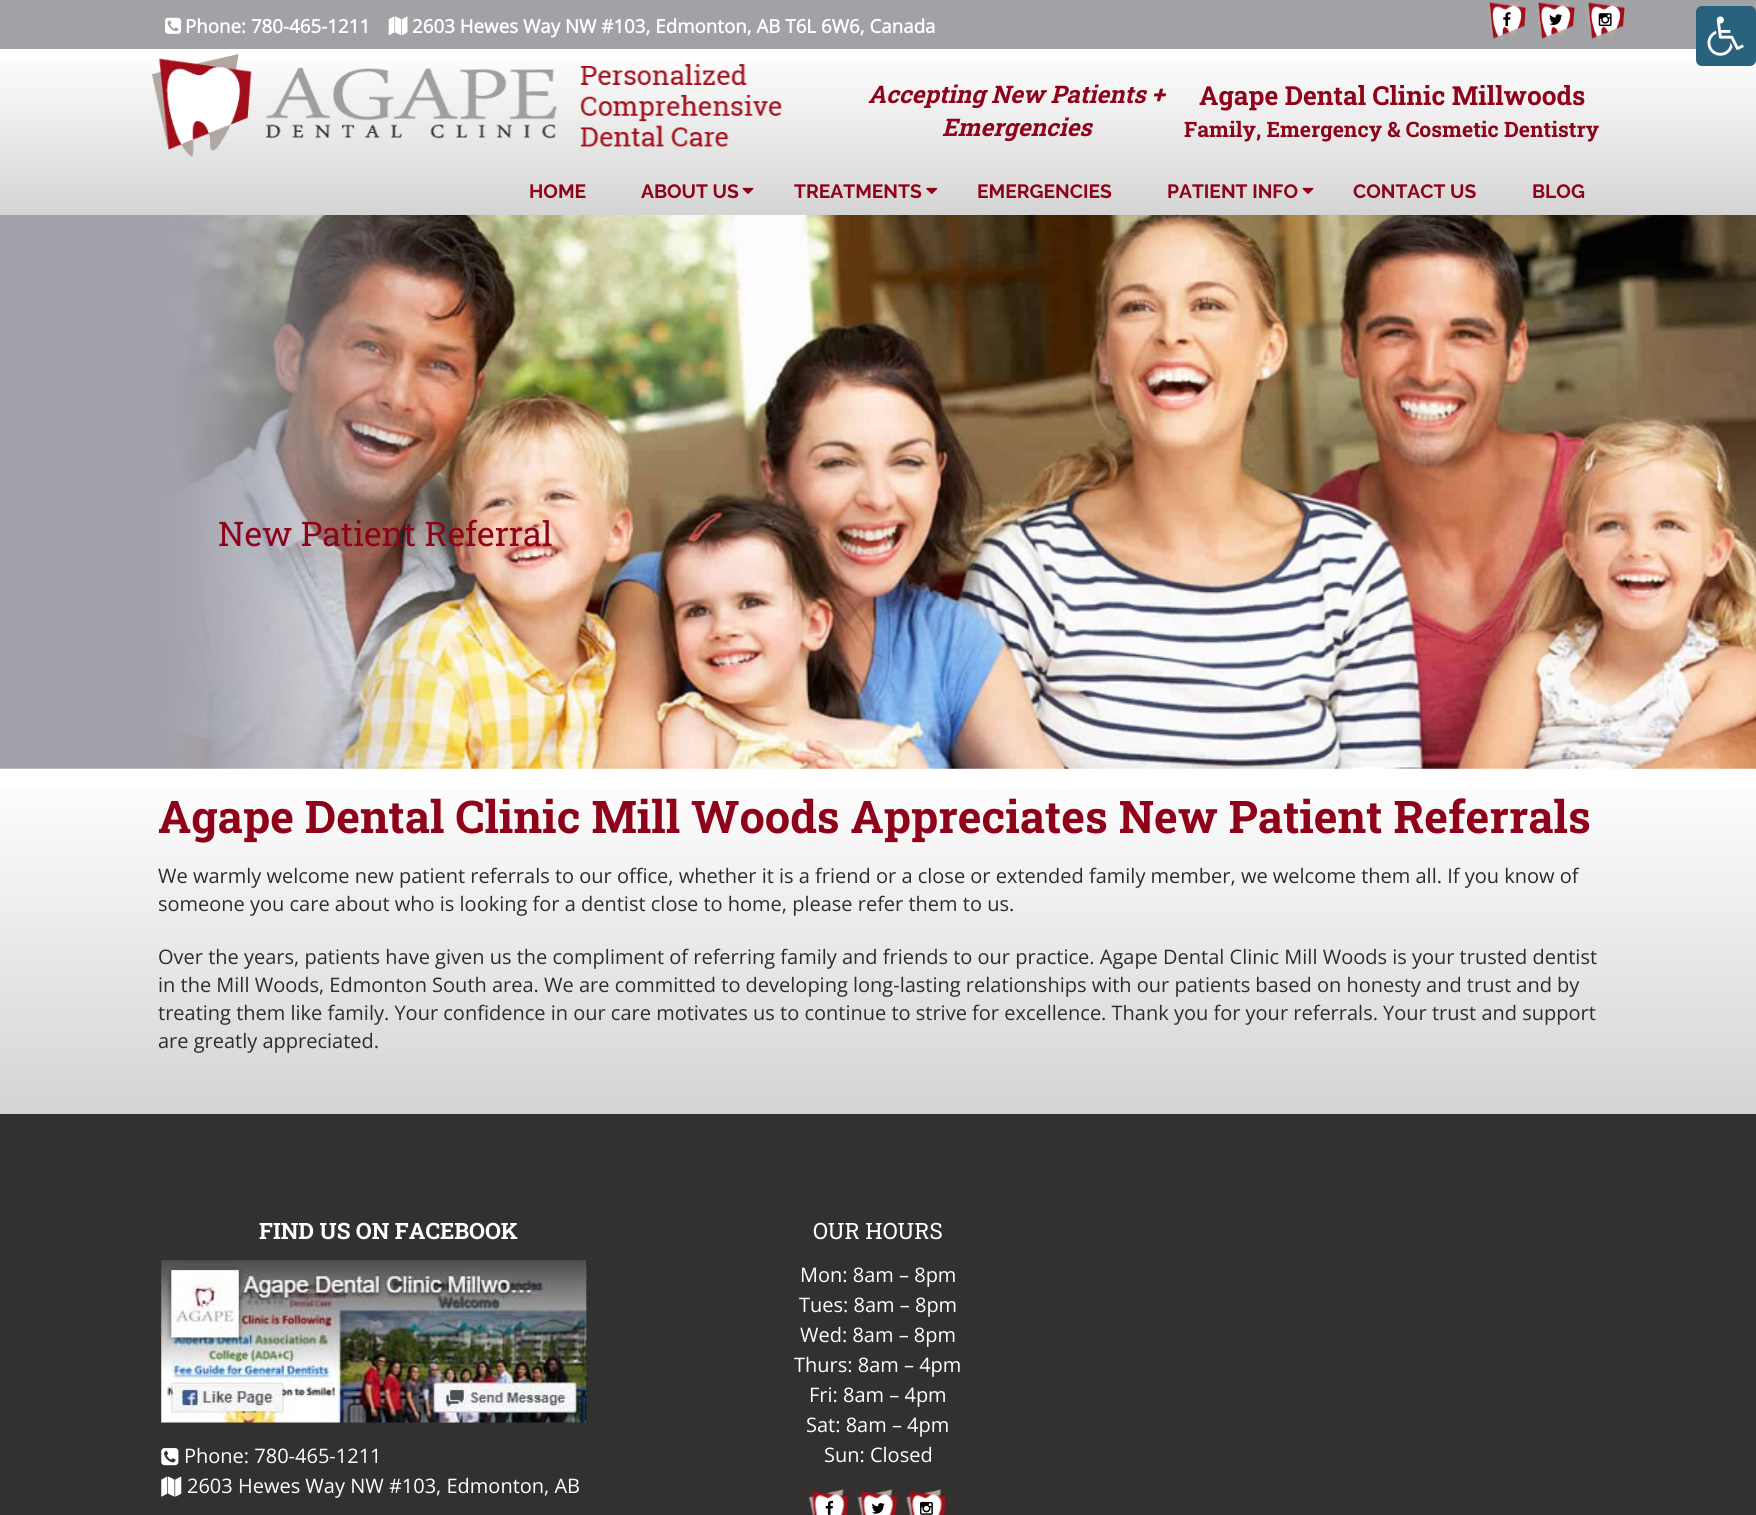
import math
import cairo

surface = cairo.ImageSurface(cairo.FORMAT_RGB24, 1756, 1515)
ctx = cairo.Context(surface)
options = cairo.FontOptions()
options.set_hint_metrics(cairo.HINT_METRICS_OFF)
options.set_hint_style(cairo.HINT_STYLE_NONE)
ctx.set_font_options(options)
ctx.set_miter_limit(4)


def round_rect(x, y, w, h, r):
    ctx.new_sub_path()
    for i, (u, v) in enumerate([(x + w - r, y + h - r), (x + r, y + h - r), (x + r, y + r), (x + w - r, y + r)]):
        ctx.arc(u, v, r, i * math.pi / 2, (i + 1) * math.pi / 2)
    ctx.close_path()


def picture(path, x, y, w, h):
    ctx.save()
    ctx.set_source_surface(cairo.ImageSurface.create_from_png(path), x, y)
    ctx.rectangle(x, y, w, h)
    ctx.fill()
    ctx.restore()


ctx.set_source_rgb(1, 1, 1)
ctx.paint()
ctx.set_source_rgb(0.631, 0.635, 0.647)
ctx.rectangle(0, 0, 1756, 49)
ctx.fill()
picture("img1.png", 165, 17, 17, 17)
ctx.select_font_face("Open Sans", cairo.FONT_SLANT_NORMAL, cairo.FONT_WEIGHT_BOLD)
ctx.set_font_size(18.75)
ctx.set_source_rgb(1, 1, 1)
ctx.move_to(185, 33)
ctx.show_text("Phone: 780-465-1211")
picture("img2.png", 388, 16, 20, 20)
ctx.move_to(412, 33)
ctx.show_text("2603 Hewes Way NW #103, Edmonton, AB T6L 6W6, Canada")
picture("img3.png", 1487, 1, 39, 40)
picture("img4.png", 1503, 12, 8, 15)
picture("img5.png", 1535, 1, 40, 40)
picture("img6.png", 1549, 14, 14, 11)
picture("img5.png", 1585, 1, 40, 40)
picture("img7.png", 1598, 13, 14, 14)
gradient = cairo.LinearGradient(878, 49, 878, 215)
gradient.add_color_stop_rgba(0, 1, 1, 1, 1)
gradient.add_color_stop_rgba(1, 0.831, 0.831, 0.831, 1)
ctx.set_source(gradient)
ctx.rectangle(0, 59, 1756, 156)
ctx.fill()
picture("img8.png", 152, 54, 630, 103)
ctx.select_font_face("Roboto Slab", cairo.FONT_SLANT_ITALIC, cairo.FONT_WEIGHT_BOLD)
ctx.set_font_size(24.25)
ctx.set_source_rgb(0.557, 0.012, 0.102)
ctx.move_to(868, 103)
ctx.show_text("Accepting New Patients +")
ctx.move_to(942, 136)
ctx.show_text("Emergencies")
ctx.select_font_face("Roboto Slab", cairo.FONT_SLANT_NORMAL, cairo.FONT_WEIGHT_BOLD)
ctx.set_font_size(26.25)
ctx.move_to(1199, 105)
ctx.show_text("Agape Dental Clinic Millwoods")
ctx.set_font_size(21.25)
ctx.move_to(1184, 137)
ctx.show_text("Family, Emergency & Cosmetic Dentistry")
ctx.select_font_face("Raleway", cairo.FONT_SLANT_NORMAL, cairo.FONT_WEIGHT_BOLD)
ctx.set_font_size(19.25)
ctx.move_to(529, 198)
ctx.show_text("HOME")
ctx.move_to(641, 198)
ctx.show_text("ABOUT US")
picture("img9.png", 742, 187, 12, 7)
ctx.move_to(794, 198)
ctx.show_text("TREATMENTS")
picture("img10.png", 926, 187, 12, 7)
ctx.move_to(977, 198)
ctx.show_text("EMERGENCIES")
ctx.move_to(1167, 198)
ctx.show_text("PATIENT INFO")
picture("img9.png", 1302, 187, 12, 7)
ctx.move_to(1353, 198)
ctx.show_text("CONTACT US")
ctx.move_to(1532, 198)
ctx.show_text("BLOG")
picture("img11.png", 0, 215, 1756, 554)
gradient = cairo.LinearGradient(878, 769, 878, 1114)
gradient.add_color_stop_rgba(0, 1, 1, 1, 1)
gradient.add_color_stop_rgba(1, 0.831, 0.831, 0.831, 1)
ctx.set_source(gradient)
ctx.rectangle(0, 789, 1756, 325)
ctx.fill()
ctx.select_font_face("Roboto Slab")
ctx.set_font_size(34)
ctx.set_source_rgb(0.557, 0.012, 0.102)
ctx.move_to(218, 546)
ctx.show_text("New Patient Referral")
ctx.select_font_face("Roboto Slab", cairo.FONT_SLANT_NORMAL, cairo.FONT_WEIGHT_BOLD)
ctx.set_font_size(45)
ctx.move_to(158, 833)
ctx.show_text("Agape Dental Clinic Mill Woods Appreciates New Patient Referrals")
ctx.select_font_face("Open Sans")
ctx.set_font_size(20)
ctx.set_source_rgb(0.188, 0.173, 0.165)
ctx.move_to(158, 883)
ctx.show_text("We warmly welcome new patient referrals to our office, whether it is a friend or a close or extended family member, we welcome them all. If you know of")
ctx.move_to(158, 911)
ctx.show_text("someone you care about who is looking for a dentist close to home, please refer them to us.")
ctx.move_to(158, 964)
ctx.show_text("Over the years, patients have given us the compliment of referring family and friends to our practice. Agape Dental Clinic Mill Woods is your trusted dentist")
ctx.move_to(158, 992)
ctx.show_text("in the Mill Woods, Edmonton South area. We are committed to developing long-lasting relationships with our patients based on honesty and trust and by")
ctx.move_to(158, 1020)
ctx.show_text("treating them like family. Your confidence in our care motivates us to continue to strive for excellence. Thank you for your referrals. Your trust and support")
ctx.move_to(158, 1048)
ctx.show_text("are greatly appreciated.")
ctx.set_source_rgb(0.2, 0.188, 0.188)
ctx.rectangle(0, 1114, 1756, 401)
ctx.fill()
ctx.select_font_face("Roboto Slab", cairo.FONT_SLANT_NORMAL, cairo.FONT_WEIGHT_BOLD)
ctx.set_font_size(22.5)
ctx.set_source_rgb(1, 1, 1)
ctx.move_to(259, 1239)
ctx.show_text("FIND US ON FACEBOOK")
picture("img12.png", 161, 1260, 427, 163)
picture("img13.png", 161, 1448, 18, 18)
ctx.select_font_face("Open Sans")
ctx.set_font_size(20)
ctx.move_to(184, 1463)
ctx.show_text("Phone: 780-465-1211")
picture("img14.png", 161, 1476, 21, 21)
ctx.move_to(187, 1493)
ctx.show_text("2603 Hewes Way NW #103, Edmonton, AB")
ctx.select_font_face("Roboto Slab")
ctx.set_font_size(22.5)
ctx.move_to(813, 1239)
ctx.show_text("OUR HOURS")
ctx.select_font_face("Open Sans")
ctx.set_font_size(20)
ctx.move_to(800, 1282)
ctx.show_text("Mon: 8am – 8pm")
ctx.move_to(799, 1312)
ctx.show_text("Tues: 8am – 8pm")
ctx.move_to(800, 1342)
ctx.show_text("Wed: 8am – 8pm")
ctx.move_to(794, 1372)
ctx.show_text("Thurs: 8am – 4pm")
ctx.move_to(809, 1402)
ctx.show_text("Fri: 8am – 4pm")
ctx.move_to(806, 1432)
ctx.show_text("Sat: 8am – 4pm")
ctx.move_to(824, 1462)
ctx.show_text("Sun: Closed")
picture("img15.png", 808, 1489, 41, 26)
picture("img16.png", 825, 1500, 9, 15)
picture("img17.png", 857, 1489, 41, 26)
picture("img18.png", 871, 1503, 14, 11)
picture("img19.png", 906, 1489, 41, 26)
picture("img20.png", 920, 1501, 13, 14)
ctx.set_source_rgb(0.161, 0.384, 0.49)
round_rect(1696, 6, 60, 60, 6)
ctx.fill()
picture("img21.png", 1707, 16, 37, 40)
surface.write_to_png("page.png")
